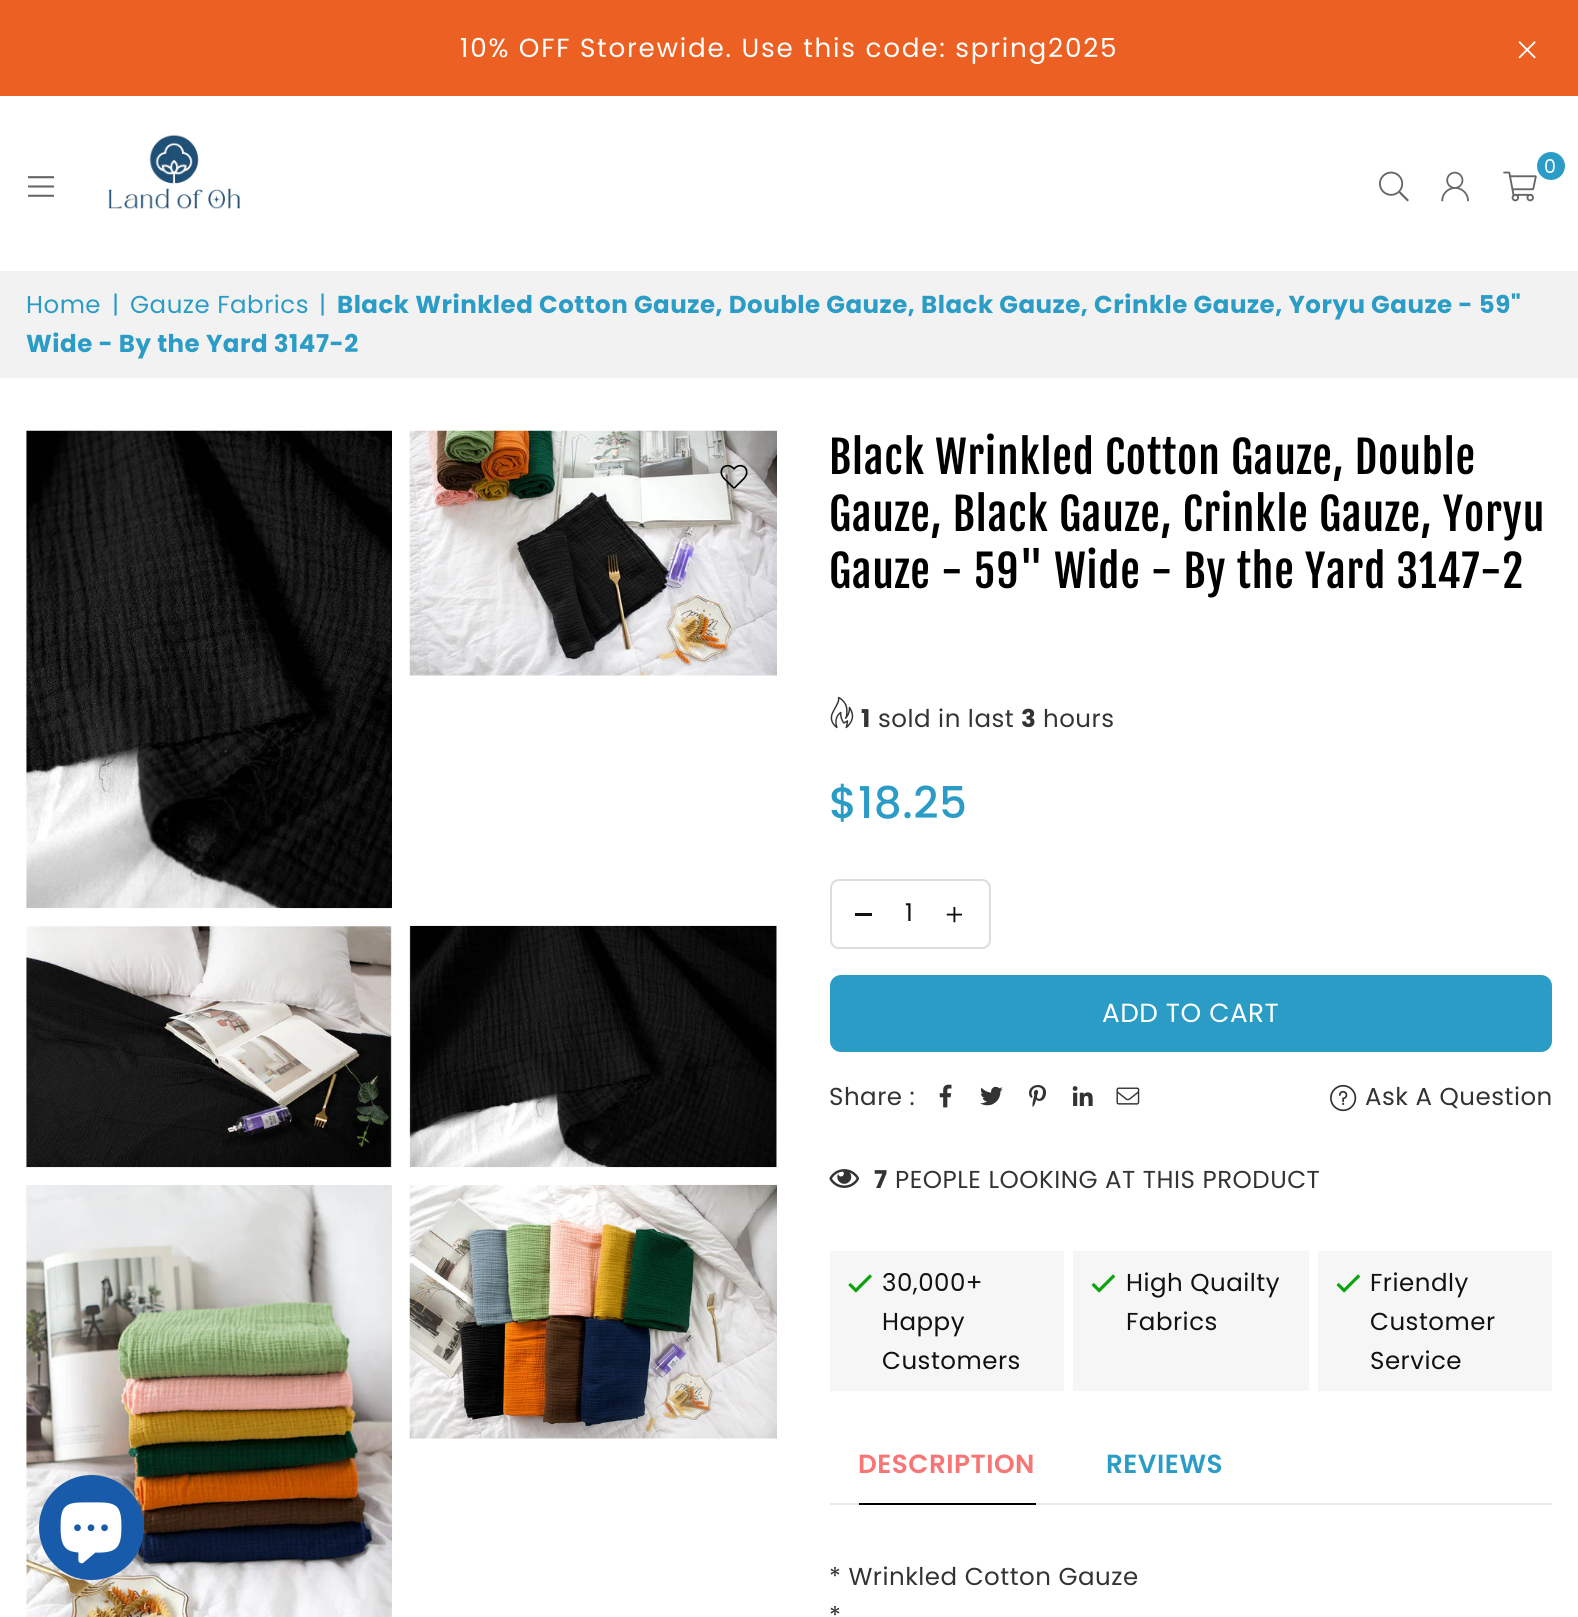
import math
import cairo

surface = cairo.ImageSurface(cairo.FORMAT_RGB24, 1578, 1617)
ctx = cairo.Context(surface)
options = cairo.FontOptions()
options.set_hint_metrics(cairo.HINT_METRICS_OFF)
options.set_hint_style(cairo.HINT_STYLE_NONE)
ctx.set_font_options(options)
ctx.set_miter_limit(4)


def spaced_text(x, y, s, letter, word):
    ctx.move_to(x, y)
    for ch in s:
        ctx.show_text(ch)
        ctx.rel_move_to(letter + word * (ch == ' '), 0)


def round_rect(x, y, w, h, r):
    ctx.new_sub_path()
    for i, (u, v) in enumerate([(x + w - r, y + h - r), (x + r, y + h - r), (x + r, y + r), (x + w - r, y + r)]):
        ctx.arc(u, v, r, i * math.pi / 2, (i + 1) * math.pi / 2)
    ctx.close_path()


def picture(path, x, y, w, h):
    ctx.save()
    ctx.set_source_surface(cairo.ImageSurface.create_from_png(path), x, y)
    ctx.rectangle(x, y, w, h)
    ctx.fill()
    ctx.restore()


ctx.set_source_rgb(1, 1, 1)
ctx.paint()
ctx.set_source_rgb(0.922, 0.38, 0.137)
ctx.rectangle(0, 0, 1578, 96)
ctx.fill()
ctx.select_font_face("Poppins")
ctx.set_font_size(26.25)
ctx.set_source_rgb(1, 1, 1)
spaced_text(460, 57, "10% OFF Storewide. Use this code: spring2025", 1.75, 0)
picture("img1.png", 1518, 41, 18, 18)
picture("img2.png", 108, 134, 133, 75)
ctx.set_source_rgb(0.169, 0.612, 0.776)
ctx.arc(1551, 166, 14, 0, 2 * math.pi)
ctx.fill()
ctx.set_font_size(19)
ctx.set_source_rgb(1, 1, 1)
spaced_text(1544, 173, "0", 0.5, 0)
picture("img3.png", 1503, 171, 34, 31)
picture("img4.png", 1379, 171, 30, 31)
picture("img5.png", 1441, 171, 28, 31)
picture("img6.png", 28, 176, 27, 21)
ctx.set_source_rgb(0.949, 0.949, 0.949)
ctx.rectangle(0, 271, 1578, 107)
ctx.fill()
ctx.set_font_size(24.5)
ctx.set_source_rgb(0.169, 0.612, 0.776)
spaced_text(26, 313, "Home", 0.5, 0)
spaced_text(112, 313, "|", 0.5, 0)
spaced_text(130, 313, "Gauze Fabrics", 0.5, 0)
spaced_text(319, 313, "|", 0.5, 0)
ctx.select_font_face("Poppins", cairo.FONT_SLANT_NORMAL, cairo.FONT_WEIGHT_BOLD)
spaced_text(337, 313, "Black Wrinkled Cotton Gauze, Double Gauze, Black Gauze, Crinkle Gauze, Yoryu Gauze - 59\"", 0.5, 0)
spaced_text(26, 352, "Wide - By the Yard 3147-2", 0.5, 0)
picture("img7.png", 26, 430, 366, 479)
picture("img8.png", 409, 430, 368, 246)
picture("img9.png", 26, 925, 366, 243)
picture("img10.png", 409, 925, 368, 243)
picture("img11.png", 26, 1185, 366, 432)
picture("img12.png", 409, 1184, 368, 255)
picture("img13.png", 720, 464, 28, 25)
ctx.select_font_face("Fjalla One")
ctx.set_font_size(43.75)
ctx.set_source_rgb(0, 0, 0)
spaced_text(829, 474, "Black Wrinkled Cotton Gauze, Double", 0.9, 0)
spaced_text(829, 531, "Gauze, Black Gauze, Crinkle Gauze, Yoryu", 0.9, 0)
spaced_text(829, 588, "Gauze - 59\" Wide - By the Yard 3147-2", 0.9, 0)
picture("img14.png", 830, 696, 24, 33)
ctx.select_font_face("Poppins", cairo.FONT_SLANT_NORMAL, cairo.FONT_WEIGHT_BOLD)
ctx.set_font_size(24.5)
ctx.set_source_rgb(0.2, 0.2, 0.2)
spaced_text(861, 727, "1", 0.5, 0)
ctx.select_font_face("Poppins")
spaced_text(878, 727, "sold in last", 0.5, 0)
ctx.select_font_face("Poppins", cairo.FONT_SLANT_NORMAL, cairo.FONT_WEIGHT_BOLD)
spaced_text(1021, 727, "3", 0.5, 0)
ctx.select_font_face("Poppins")
spaced_text(1043, 727, "hours", 0.5, 0)
ctx.select_font_face("Poppins Medium")
ctx.set_font_size(43.75)
ctx.set_source_rgb(0.169, 0.612, 0.776)
spaced_text(829, 818, "$18.25", 0.5, 0)
round_rect(831, 880, 159, 68, 8)
ctx.set_source_rgb(0.867, 0.867, 0.867)
ctx.stroke()
ctx.set_source_rgb(0.067, 0.067, 0.067)
ctx.rectangle(855, 913, 17, 3)
ctx.fill()
ctx.select_font_face("Poppins")
ctx.set_font_size(24.5)
ctx.move_to(905, 921)
ctx.show_text("1")
picture("img15.png", 946, 906, 17, 17)
ctx.set_source_rgb(0.169, 0.612, 0.776)
round_rect(830, 975, 722, 77, 11)
ctx.fill()
ctx.set_font_size(26.25)
ctx.set_source_rgb(1, 1, 1)
spaced_text(1102, 1022, "ADD TO CART", 0.5, 0)
ctx.set_font_size(24.5)
ctx.set_source_rgb(0.2, 0.2, 0.2)
spaced_text(829, 1105, "Share :", 0.5, 0)
picture("img16.png", 939, 1084, 13, 24)
picture("img17.png", 980, 1086, 23, 20)
picture("img18.png", 1029, 1085, 18, 23)
picture("img19.png", 1072, 1086, 21, 20)
picture("img20.png", 1116, 1087, 24, 18)
picture("img21.png", 1330, 1084, 27, 28)
spaced_text(1365, 1105, "Ask A Question", 0.5, 0)
picture("img22.png", 829, 1169, 30, 19)
ctx.select_font_face("Poppins", cairo.FONT_SLANT_NORMAL, cairo.FONT_WEIGHT_BOLD)
spaced_text(874, 1188, "7", 0.5, 0)
ctx.select_font_face("Poppins")
spaced_text(895, 1188, "PEOPLE LOOKING AT THIS PRODUCT", 0.5, 0)
ctx.set_source_rgb(0.961, 0.961, 0.961)
ctx.rectangle(830, 1251, 234, 140)
ctx.fill()
picture("img23.png", 848, 1274, 24, 19)
ctx.set_source_rgb(0.067, 0.067, 0.067)
spaced_text(882, 1291, "30,000+", 0.5, 0)
spaced_text(882, 1330, "Happy", 0.5, 0)
spaced_text(882, 1369, "Customers", 0.5, 0)
ctx.set_source_rgb(0.961, 0.961, 0.961)
ctx.rectangle(1073, 1251, 236, 140)
ctx.fill()
picture("img24.png", 1091, 1274, 24, 19)
ctx.set_source_rgb(0.067, 0.067, 0.067)
spaced_text(1126, 1291, "High Quailty", 0.5, 0)
spaced_text(1126, 1330, "Fabrics", 0.5, 0)
ctx.set_source_rgb(0.961, 0.961, 0.961)
ctx.rectangle(1318, 1251, 234, 140)
ctx.fill()
picture("img24.png", 1336, 1274, 24, 19)
ctx.set_source_rgb(0.067, 0.067, 0.067)
spaced_text(1370, 1291, "Friendly", 0.5, 0)
spaced_text(1370, 1330, "Customer", 0.5, 0)
spaced_text(1370, 1369, "Service", 0.5, 0)
ctx.set_source_rgb(0.914, 0.914, 0.914)
ctx.rectangle(830, 1503, 722, 2)
ctx.fill()
ctx.select_font_face("Poppins SemiBold")
ctx.set_font_size(26.25)
ctx.set_source_rgb(0.969, 0.459, 0.459)
spaced_text(858, 1473, "DESCRIPTION", 0.5, 0)
ctx.set_source_rgb(0, 0, 0)
ctx.rectangle(859, 1503, 177, 2)
ctx.fill()
ctx.set_source_rgb(0.169, 0.612, 0.776)
spaced_text(1106, 1473, "REVIEWS", 0.5, 0)
ctx.select_font_face("Poppins")
ctx.set_font_size(24.5)
ctx.set_source_rgb(0.2, 0.2, 0.2)
spaced_text(829, 1585, "* Wrinkled Cotton Gauze", 0.5, 0)
spaced_text(829, 1624, "*", 0.5, 0)
ctx.set_source_rgb(0.094, 0.357, 0.671)
ctx.new_path()
ctx.arc(91.5, 1527.5, 52.5, 0, 2 * math.pi)
ctx.fill()
picture("img25.png", 60, 1502, 62, 62)
surface.write_to_png("page.png")
